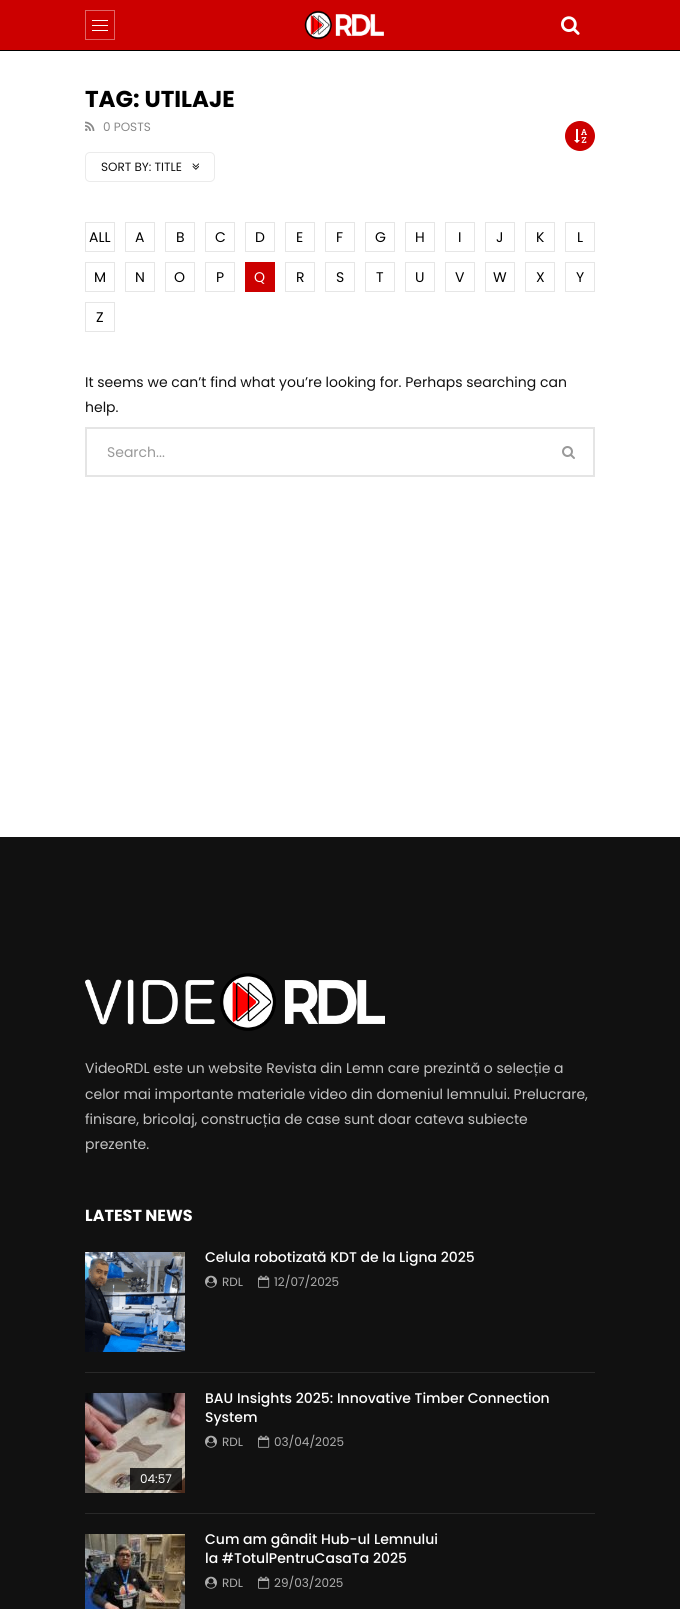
import math
import cairo

surface = cairo.ImageSurface(cairo.FORMAT_RGB24, 680, 1609)
ctx = cairo.Context(surface)
options = cairo.FontOptions()
options.set_hint_metrics(cairo.HINT_METRICS_OFF)
options.set_hint_style(cairo.HINT_STYLE_NONE)
ctx.set_font_options(options)
ctx.set_miter_limit(4)


def round_rect(x, y, w, h, r):
    ctx.new_sub_path()
    for i, (u, v) in enumerate([(x + w - r, y + h - r), (x + r, y + h - r), (x + r, y + r), (x + w - r, y + r)]):
        ctx.arc(u, v, r, i * math.pi / 2, (i + 1) * math.pi / 2)
    ctx.close_path()


def picture(path, x, y, w, h):
    ctx.save()
    ctx.set_source_surface(cairo.ImageSurface.create_from_png(path), x, y)
    ctx.rectangle(x, y, w, h)
    ctx.fill()
    ctx.restore()


ctx.set_source_rgb(1, 1, 1)
ctx.paint()
ctx.set_source_rgb(0.8, 0, 0)
ctx.rectangle(0, 0, 680, 50)
ctx.fill()
ctx.rectangle(85.5, 10.5, 29, 29)
ctx.set_source_rgb(0.878, 0.4, 0.4)
ctx.set_line_width(1)
ctx.stroke()
ctx.set_source_rgb(1, 1, 1)
ctx.rectangle(92, 20, 16, 1)
ctx.fill()
ctx.rectangle(92, 25, 16, 1)
ctx.fill()
ctx.rectangle(92, 30, 16, 1)
ctx.fill()
picture("img1.png", 304, 10, 80, 30)
picture("img2.png", 561, 16, 19, 19)
ctx.set_source_rgb(0, 0, 0)
ctx.rectangle(0, 50, 680, 1)
ctx.fill()
ctx.select_font_face("Poppins", cairo.FONT_SLANT_NORMAL, cairo.FONT_WEIGHT_BOLD)
ctx.set_font_size(23)
ctx.move_to(85, 107)
ctx.show_text("TAG: UTILAJE")
picture("img3.png", 85, 121, 10, 10)
ctx.select_font_face("Poppins")
ctx.set_font_size(12)
ctx.set_source_rgb(0.533, 0.533, 0.533)
ctx.move_to(103, 131)
ctx.show_text("0 POSTS")
round_rect(85.5, 152.5, 129, 29, 4.5)
ctx.set_source_rgb(0.918, 0.918, 0.918)
ctx.stroke()
ctx.set_source_rgb(0.067, 0.067, 0.067)
ctx.move_to(101, 171)
ctx.show_text("SORT BY: TITLE")
picture("img4.png", 192, 163, 7, 7)
ctx.set_source_rgb(0.8, 0, 0)
ctx.arc(580, 136, 15, 0, 2 * math.pi)
ctx.fill()
picture("img5.png", 574, 129, 13, 14)
ctx.rectangle(85.5, 222.5, 29, 29)
ctx.set_source_rgb(0.902, 0.902, 0.902)
ctx.stroke()
ctx.set_font_size(14)
ctx.set_source_rgb(0, 0, 0)
ctx.move_to(89, 242)
ctx.show_text("ALL")
ctx.rectangle(125.5, 222.5, 29, 29)
ctx.set_source_rgb(0.902, 0.902, 0.902)
ctx.stroke()
ctx.set_source_rgb(0, 0, 0)
ctx.move_to(135, 242)
ctx.show_text("A")
ctx.rectangle(165.5, 222.5, 29, 29)
ctx.set_source_rgb(0.902, 0.902, 0.902)
ctx.stroke()
ctx.set_source_rgb(0, 0, 0)
ctx.move_to(176, 242)
ctx.show_text("B")
ctx.rectangle(205.5, 222.5, 29, 29)
ctx.set_source_rgb(0.902, 0.902, 0.902)
ctx.stroke()
ctx.set_source_rgb(0, 0, 0)
ctx.move_to(215, 242)
ctx.show_text("C")
ctx.rectangle(245.5, 222.5, 29, 29)
ctx.set_source_rgb(0.902, 0.902, 0.902)
ctx.stroke()
ctx.set_source_rgb(0, 0, 0)
ctx.move_to(255, 242)
ctx.show_text("D")
ctx.rectangle(285.5, 222.5, 29, 29)
ctx.set_source_rgb(0.902, 0.902, 0.902)
ctx.stroke()
ctx.set_source_rgb(0, 0, 0)
ctx.move_to(296, 242)
ctx.show_text("E")
ctx.rectangle(325.5, 222.5, 29, 29)
ctx.set_source_rgb(0.902, 0.902, 0.902)
ctx.stroke()
ctx.set_source_rgb(0, 0, 0)
ctx.move_to(336, 242)
ctx.show_text("F")
ctx.rectangle(365.5, 222.5, 29, 29)
ctx.set_source_rgb(0.902, 0.902, 0.902)
ctx.stroke()
ctx.set_source_rgb(0, 0, 0)
ctx.move_to(375, 242)
ctx.show_text("G")
ctx.rectangle(405.5, 222.5, 29, 29)
ctx.set_source_rgb(0.902, 0.902, 0.902)
ctx.stroke()
ctx.set_source_rgb(0, 0, 0)
ctx.move_to(415, 242)
ctx.show_text("H")
ctx.rectangle(445.5, 222.5, 29, 29)
ctx.set_source_rgb(0.902, 0.902, 0.902)
ctx.stroke()
ctx.set_source_rgb(0, 0, 0)
ctx.move_to(458, 242)
ctx.show_text("I")
ctx.rectangle(485.5, 222.5, 29, 29)
ctx.set_source_rgb(0.902, 0.902, 0.902)
ctx.stroke()
ctx.set_source_rgb(0, 0, 0)
ctx.move_to(496, 242)
ctx.show_text("J")
ctx.rectangle(525.5, 222.5, 29, 29)
ctx.set_source_rgb(0.902, 0.902, 0.902)
ctx.stroke()
ctx.set_source_rgb(0, 0, 0)
ctx.move_to(536, 242)
ctx.show_text("K")
ctx.rectangle(565.5, 222.5, 29, 29)
ctx.set_source_rgb(0.902, 0.902, 0.902)
ctx.stroke()
ctx.set_source_rgb(0, 0, 0)
ctx.move_to(577, 242)
ctx.show_text("L")
ctx.rectangle(85.5, 262.5, 29, 29)
ctx.set_source_rgb(0.902, 0.902, 0.902)
ctx.stroke()
ctx.set_source_rgb(0, 0, 0)
ctx.move_to(94, 282)
ctx.show_text("M")
ctx.rectangle(125.5, 262.5, 29, 29)
ctx.set_source_rgb(0.902, 0.902, 0.902)
ctx.stroke()
ctx.set_source_rgb(0, 0, 0)
ctx.move_to(135, 282)
ctx.show_text("N")
ctx.rectangle(165.5, 262.5, 29, 29)
ctx.set_source_rgb(0.902, 0.902, 0.902)
ctx.stroke()
ctx.set_source_rgb(0, 0, 0)
ctx.move_to(174, 282)
ctx.show_text("O")
ctx.rectangle(205.5, 262.5, 29, 29)
ctx.set_source_rgb(0.902, 0.902, 0.902)
ctx.stroke()
ctx.set_source_rgb(0, 0, 0)
ctx.move_to(216, 282)
ctx.show_text("P")
ctx.set_source_rgb(0.8, 0, 0)
ctx.rectangle(245, 262, 30, 30)
ctx.fill()
ctx.set_source_rgb(1, 1, 1)
ctx.move_to(254, 282)
ctx.show_text("Q")
ctx.rectangle(285.5, 262.5, 29, 29)
ctx.set_source_rgb(0.902, 0.902, 0.902)
ctx.stroke()
ctx.set_source_rgb(0, 0, 0)
ctx.move_to(296, 282)
ctx.show_text("R")
ctx.rectangle(325.5, 262.5, 29, 29)
ctx.set_source_rgb(0.902, 0.902, 0.902)
ctx.stroke()
ctx.set_source_rgb(0, 0, 0)
ctx.move_to(336, 282)
ctx.show_text("S")
ctx.rectangle(365.5, 262.5, 29, 29)
ctx.set_source_rgb(0.902, 0.902, 0.902)
ctx.stroke()
ctx.set_source_rgb(0, 0, 0)
ctx.move_to(376, 282)
ctx.show_text("T")
ctx.rectangle(405.5, 262.5, 29, 29)
ctx.set_source_rgb(0.902, 0.902, 0.902)
ctx.stroke()
ctx.set_source_rgb(0, 0, 0)
ctx.move_to(415, 282)
ctx.show_text("U")
ctx.rectangle(445.5, 262.5, 29, 29)
ctx.set_source_rgb(0.902, 0.902, 0.902)
ctx.stroke()
ctx.set_source_rgb(0, 0, 0)
ctx.move_to(455, 282)
ctx.show_text("V")
ctx.rectangle(485.5, 262.5, 29, 29)
ctx.set_source_rgb(0.902, 0.902, 0.902)
ctx.stroke()
ctx.set_source_rgb(0, 0, 0)
ctx.move_to(493, 282)
ctx.show_text("W")
ctx.rectangle(525.5, 262.5, 29, 29)
ctx.set_source_rgb(0.902, 0.902, 0.902)
ctx.stroke()
ctx.set_source_rgb(0, 0, 0)
ctx.move_to(536, 282)
ctx.show_text("X")
ctx.rectangle(565.5, 262.5, 29, 29)
ctx.set_source_rgb(0.902, 0.902, 0.902)
ctx.stroke()
ctx.set_source_rgb(0, 0, 0)
ctx.move_to(576, 282)
ctx.show_text("Y")
ctx.rectangle(85.5, 302.5, 29, 29)
ctx.set_source_rgb(0.902, 0.902, 0.902)
ctx.stroke()
ctx.set_source_rgb(0, 0, 0)
ctx.move_to(96, 322)
ctx.show_text("Z")
ctx.set_source_rgb(0.067, 0.067, 0.067)
ctx.move_to(85, 387)
ctx.show_text("It seems we can’t find what you’re looking for. Perhaps searching can")
ctx.move_to(85, 412)
ctx.show_text("help.")
ctx.rectangle(86, 428, 508, 48)
ctx.set_source_rgb(0.898, 0.898, 0.898)
ctx.set_line_width(2)
ctx.stroke()
ctx.set_source_rgb(0.6, 0.6, 0.6)
ctx.move_to(107, 457)
ctx.show_text("Search...")
picture("img6.png", 562, 446, 13, 13)
ctx.set_source_rgb(0.067, 0.067, 0.067)
ctx.rectangle(0, 837, 680, 772)
ctx.fill()
picture("img7.png", 85, 973, 300, 58)
ctx.set_source_rgb(0.769, 0.769, 0.769)
ctx.move_to(85, 1073)
ctx.show_text("VideoRDL este un website Revista din Lemn care prezintă o selecție a")
ctx.move_to(85, 1099)
ctx.show_text("celor mai importante materiale video din domeniul lemnului. Prelucrare,")
ctx.move_to(85, 1124)
ctx.show_text("finisare, bricolaj, construcția de case sunt doar cateva subiecte")
ctx.move_to(85, 1149)
ctx.show_text("prezente.")
ctx.select_font_face("Poppins", cairo.FONT_SLANT_NORMAL, cairo.FONT_WEIGHT_BOLD)
ctx.set_font_size(16)
ctx.set_source_rgb(1, 1, 1)
ctx.move_to(85, 1221)
ctx.show_text("LATEST NEWS")
ctx.set_source_rgb(0.161, 0.161, 0.161)
ctx.rectangle(85, 1372, 510, 1)
ctx.fill()
picture("img8.png", 85, 1252, 100, 100)
ctx.select_font_face("Poppins Medium")
ctx.set_font_size(14)
ctx.set_source_rgb(1, 1, 1)
ctx.move_to(205, 1262)
ctx.show_text("Celula robotizată KDT de la Ligna 2025")
picture("img9.png", 205, 1275, 12, 13)
ctx.select_font_face("Poppins")
ctx.set_font_size(12)
ctx.set_source_rgb(0.682, 0.682, 0.682)
ctx.move_to(222, 1286)
ctx.show_text("RDL")
picture("img10.png", 258, 1275, 12, 13)
ctx.move_to(274, 1286)
ctx.show_text("12/07/2025")
ctx.set_source_rgb(0.161, 0.161, 0.161)
ctx.rectangle(85, 1513, 510, 1)
ctx.fill()
ctx.select_font_face("Poppins Medium")
ctx.set_font_size(14)
ctx.set_source_rgb(1, 1, 1)
ctx.move_to(205, 1403)
ctx.show_text("BAU Insights 2025: Innovative Timber Connection")
ctx.move_to(205, 1422)
ctx.show_text("System")
picture("img9.png", 205, 1435, 12, 13)
ctx.select_font_face("Poppins")
ctx.set_font_size(12)
ctx.set_source_rgb(0.682, 0.682, 0.682)
ctx.move_to(222, 1446)
ctx.show_text("RDL")
picture("img10.png", 258, 1435, 12, 13)
ctx.move_to(274, 1446)
ctx.show_text("03/04/2025")
picture("img11.png", 85, 1393, 100, 100)
ctx.set_source_rgba(0, 0, 0, 0.8)
ctx.rectangle(130, 1468, 52, 22)
ctx.fill()
ctx.set_source_rgb(1, 1, 1)
ctx.move_to(140, 1483)
ctx.show_text("04:57")
picture("img12.png", 85, 1534, 100, 75)
ctx.select_font_face("Poppins Medium")
ctx.set_font_size(14)
ctx.move_to(205, 1544)
ctx.show_text("Cum am gândit Hub-ul Lemnului")
ctx.move_to(205, 1563)
ctx.show_text("la #TotulPentruCasaTa 2025")
picture("img9.png", 205, 1576, 12, 13)
ctx.select_font_face("Poppins")
ctx.set_font_size(12)
ctx.set_source_rgb(0.682, 0.682, 0.682)
ctx.move_to(222, 1587)
ctx.show_text("RDL")
picture("img10.png", 258, 1576, 12, 13)
ctx.move_to(274, 1587)
ctx.show_text("29/03/2025")
surface.write_to_png("page.png")
